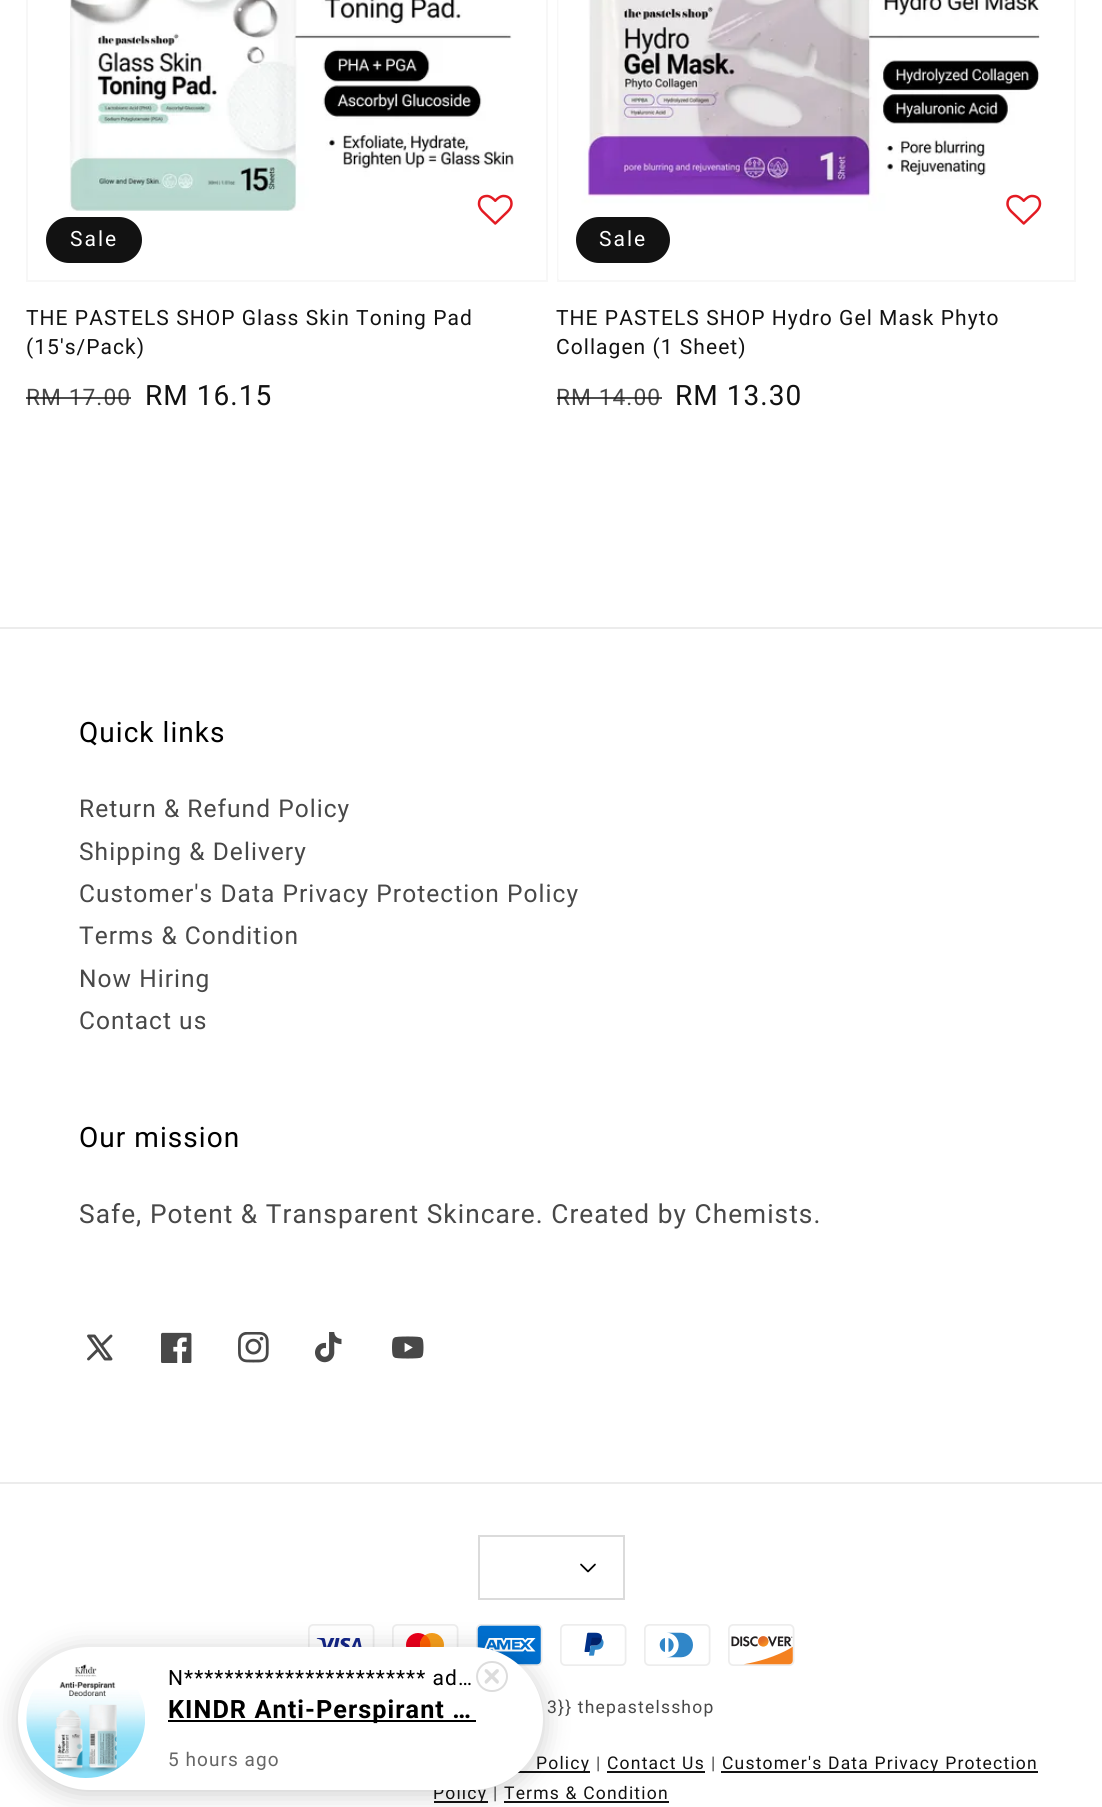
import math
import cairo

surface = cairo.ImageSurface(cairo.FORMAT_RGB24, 1102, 1807)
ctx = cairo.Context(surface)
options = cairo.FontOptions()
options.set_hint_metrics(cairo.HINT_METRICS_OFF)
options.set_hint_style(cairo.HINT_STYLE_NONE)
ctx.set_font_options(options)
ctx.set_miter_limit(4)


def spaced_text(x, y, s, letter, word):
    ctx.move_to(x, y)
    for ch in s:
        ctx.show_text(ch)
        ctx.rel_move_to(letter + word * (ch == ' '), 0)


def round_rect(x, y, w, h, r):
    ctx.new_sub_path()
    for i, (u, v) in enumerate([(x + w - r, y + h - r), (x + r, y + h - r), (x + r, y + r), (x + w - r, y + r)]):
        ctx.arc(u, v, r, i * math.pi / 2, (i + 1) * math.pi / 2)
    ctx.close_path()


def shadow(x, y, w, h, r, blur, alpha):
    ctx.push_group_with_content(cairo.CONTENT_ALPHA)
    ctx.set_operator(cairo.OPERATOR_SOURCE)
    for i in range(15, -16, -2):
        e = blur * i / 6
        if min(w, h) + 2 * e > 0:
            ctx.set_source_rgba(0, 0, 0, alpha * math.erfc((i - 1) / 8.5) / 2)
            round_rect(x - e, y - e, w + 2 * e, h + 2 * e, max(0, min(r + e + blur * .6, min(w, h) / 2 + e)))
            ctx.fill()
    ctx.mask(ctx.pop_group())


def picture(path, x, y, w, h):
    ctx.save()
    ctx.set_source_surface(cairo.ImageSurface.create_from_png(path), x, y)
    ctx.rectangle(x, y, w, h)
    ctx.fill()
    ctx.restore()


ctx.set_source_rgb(1, 1, 1)
ctx.paint()
ctx.rectangle(27, -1, 520, 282)
ctx.set_source_rgb(0.965, 0.965, 0.965)
ctx.stroke()
picture("img1.png", 69, 0, 445, 211)
ctx.set_source_rgb(0.071, 0.071, 0.071)
round_rect(47, 218, 94, 44, 22)
ctx.fill_preserve()
ctx.stroke()
ctx.select_font_face("Roboto")
ctx.set_font_size(21)
ctx.set_source_rgb(1, 1, 1)
spaced_text(70, 246, "Sale", 2, 0)
picture("img2.png", 477, 194, 36, 31)
ctx.set_source_rgb(0.071, 0.071, 0.071)
spaced_text(26, 325, "THE PASTELS SHOP Glass Skin Toning Pad", 1.05, 0)
spaced_text(26, 354, "(15's/Pack)", 1.05, 0)
ctx.set_font_size(22.75)
ctx.set_source_rgb(0.282, 0.282, 0.282)
spaced_text(26, 405, "RM 17.00", 1.05, 0)
ctx.set_source_rgba(0.071, 0.071, 0.071, 0.75)
ctx.rectangle(26, 397, 42, 2)
ctx.fill()
ctx.rectangle(68, 397, 63, 2)
ctx.fill()
ctx.set_font_size(28)
ctx.set_source_rgb(0.071, 0.071, 0.071)
spaced_text(145, 405, "RM 16.15", 1.05, 0)
ctx.rectangle(558, -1, 517, 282)
ctx.set_source_rgb(0.965, 0.965, 0.965)
ctx.stroke()
picture("img3.png", 558, 0, 482, 279)
ctx.set_source_rgb(0.071, 0.071, 0.071)
round_rect(577, 218, 92, 44, 22)
ctx.fill_preserve()
ctx.stroke()
ctx.set_font_size(21)
ctx.set_source_rgb(1, 1, 1)
spaced_text(599, 246, "Sale", 2, 0)
picture("img4.png", 1006, 194, 36, 31)
ctx.set_source_rgb(0.071, 0.071, 0.071)
spaced_text(556, 325, "THE PASTELS SHOP Hydro Gel Mask Phyto", 1.05, 0)
spaced_text(556, 354, "Collagen (1 Sheet)", 1.05, 0)
ctx.set_font_size(22.75)
ctx.set_source_rgb(0.282, 0.282, 0.282)
spaced_text(556, 405, "RM 14.00", 1.05, 0)
ctx.set_source_rgba(0.071, 0.071, 0.071, 0.75)
ctx.rectangle(557, 397, 42, 2)
ctx.fill()
ctx.rectangle(599, 397, 63, 2)
ctx.fill()
ctx.set_font_size(28)
ctx.set_source_rgb(0.071, 0.071, 0.071)
spaced_text(675, 405, "RM 13.30", 1.05, 0)
ctx.set_source_rgb(0.925, 0.925, 0.925)
ctx.rectangle(0, 627, 1102, 2)
ctx.fill()
ctx.set_source_rgb(0, 0, 0)
spaced_text(79, 742, "Quick links", 1.05, 0)
ctx.set_font_size(24.5)
ctx.set_source_rgb(0.282, 0.282, 0.282)
spaced_text(79, 817, "Return & Refund Policy", 1.05, 0)
spaced_text(79, 860, "Shipping & Delivery", 1.05, 0)
spaced_text(79, 902, "Customer's Data Privacy Protection Policy", 1.05, 0)
spaced_text(79, 944, "Terms & Condition", 1.05, 0)
spaced_text(79, 987, "Now Hiring", 1.05, 0)
spaced_text(79, 1029, "Contact us", 1.05, 0)
ctx.set_font_size(28)
ctx.set_source_rgb(0, 0, 0)
spaced_text(79, 1147, "Our mission", 1.05, 0)
ctx.set_font_size(26.25)
ctx.set_source_rgb(0.282, 0.282, 0.282)
spaced_text(79, 1223, "Safe, Potent & Transparent Skincare. Created by Chemists.", 1.05, 0)
ctx.new_path()
ctx.move_to(88.5, 1336)
ctx.line_to(105, 1359)
ctx.line_to(111, 1359)
ctx.line_to(94.5, 1336)
ctx.close_path()
ctx.move_to(88.5, 1359)
ctx.line_to(98, 1349.5)
ctx.move_to(101.5, 1345.5)
ctx.line_to(111, 1336)
ctx.set_line_width(2.9)
ctx.set_line_cap(cairo.LINE_CAP_ROUND)
ctx.set_line_join(cairo.LINE_JOIN_ROUND)
ctx.stroke()
picture("img5.png", 161, 1332, 31, 31)
picture("img6.png", 238, 1332, 31, 31)
picture("img7.png", 315, 1332, 27, 31)
picture("img8.png", 392, 1336, 32, 23)
ctx.set_source_rgb(0.925, 0.925, 0.925)
ctx.rectangle(0, 1482, 1102, 2)
ctx.fill()
ctx.rectangle(479, 1536, 145, 63)
ctx.set_source_rgb(0.859, 0.859, 0.859)
ctx.set_line_width(2)
ctx.set_line_cap(cairo.LINE_CAP_BUTT)
ctx.set_line_join(cairo.LINE_JOIN_MITER)
ctx.stroke()
picture("img9.png", 580, 1563, 16, 10)
picture("img10.png", 308, 1624, 67, 23)
picture("img11.png", 392, 1624, 67, 23)
picture("img12.png", 476, 1624, 67, 42)
picture("img13.png", 560, 1624, 67, 42)
picture("img14.png", 644, 1624, 67, 42)
picture("img15.png", 728, 1624, 67, 42)
ctx.set_font_size(17.5)
ctx.set_source_rgb(0.282, 0.282, 0.282)
spaced_text(547, 1713, "3}} thepastelsshop", 1.2, 0)
ctx.set_source_rgb(0.071, 0.071, 0.071)
ctx.rectangle(517, 1771, 73, 2)
ctx.fill()
spaced_text(536, 1769, "Policy", 1.2, 0)
ctx.set_source_rgb(0.282, 0.282, 0.282)
spaced_text(596, 1769, "|", 1.2, 0)
ctx.set_source_rgb(0.071, 0.071, 0.071)
spaced_text(607, 1769, "Contact Us", 1.2, 0)
ctx.rectangle(607, 1771, 98, 2)
ctx.fill()
ctx.set_source_rgb(0.282, 0.282, 0.282)
spaced_text(711, 1769, "|", 1.2, 0)
ctx.set_source_rgb(0.071, 0.071, 0.071)
ctx.rectangle(721, 1771, 317, 2)
ctx.fill()
spaced_text(722, 1769, "Customer's Data Privacy Protection", 1.2, 0)
ctx.rectangle(434, 1801, 54, 2)
ctx.fill()
spaced_text(433, 1799, "Policy", 1.2, 0)
ctx.set_source_rgb(0.282, 0.282, 0.282)
spaced_text(493, 1799, "|", 1.2, 0)
ctx.set_source_rgb(0.071, 0.071, 0.071)
spaced_text(504, 1799, "Terms & Condition", 1.2, 0)
ctx.rectangle(504, 1801, 165, 2)
ctx.fill()
ctx.set_source_rgb(0, 0, 0)
shadow(18, 1650, 525, 144, 72, 13, 0.2)
ctx.set_source_rgb(1, 1, 1)
round_rect(18, 1647, 525, 143, 71.5)
ctx.fill()
picture("img16.png", 26, 1664, 119, 114)
ctx.set_font_size(21)
ctx.set_source_rgb(0, 0, 0)
spaced_text(168, 1685, "N************************ ad…", 1.05, 0)
ctx.rectangle(168, 1720, 308, 2)
ctx.fill()
ctx.select_font_face("Roboto", cairo.FONT_SLANT_NORMAL, cairo.FONT_WEIGHT_BOLD)
ctx.set_font_size(25.25)
spaced_text(168, 1718, "KINDR Anti-Perspirant …", 1.05, 0)
ctx.select_font_face("Roboto")
ctx.set_font_size(19)
ctx.set_source_rgb(0.4, 0.4, 0.4)
spaced_text(168, 1766, "5 hours ago", 1.05, 0)
round_rect(477, 1662, 30, 29, 14.5)
ctx.set_source_rgb(0.867, 0.867, 0.867)
ctx.stroke()
ctx.set_source_rgb(0.863, 0.863, 0.863)
ctx.new_path()
ctx.move_to(498.5, 1669.5)
ctx.curve_to(499, 1670.5, 499, 1671.5, 498.5, 1672)
ctx.line_to(487.5, 1683)
ctx.curve_to(486.5, 1684, 485.5, 1684, 485, 1683)
ctx.curve_to(484.5, 1682.5, 484.5, 1681.5, 485, 1680.5)
ctx.line_to(496, 1669.5)
ctx.curve_to(497, 1669, 498, 1669, 498.5, 1669.5)
ctx.close_path()
ctx.fill()
ctx.new_path()
ctx.move_to(485, 1669.5)
ctx.curve_to(485.5, 1669, 486.5, 1669, 487.5, 1669.5)
ctx.line_to(498.5, 1680.5)
ctx.curve_to(499, 1681.5, 499, 1682.5, 498.5, 1683)
ctx.curve_to(498, 1684, 497, 1684, 496, 1683)
ctx.line_to(485, 1672)
ctx.curve_to(484.5, 1671.5, 484.5, 1670.5, 485, 1669.5)
ctx.close_path()
ctx.fill()
surface.write_to_png("page.png")
